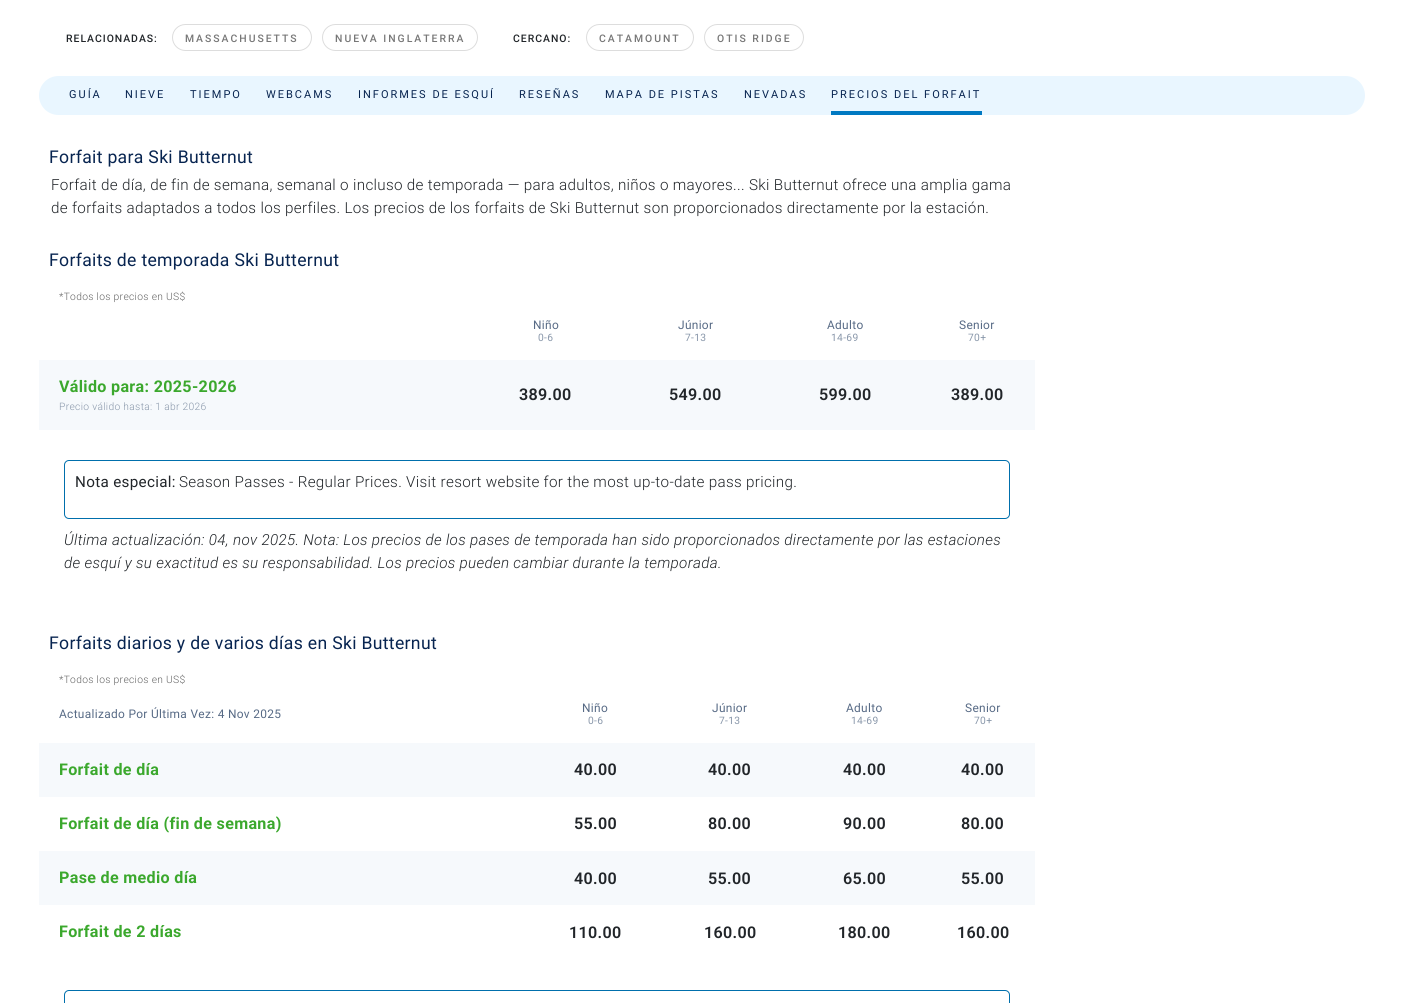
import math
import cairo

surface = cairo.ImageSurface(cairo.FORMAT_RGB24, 1403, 1003)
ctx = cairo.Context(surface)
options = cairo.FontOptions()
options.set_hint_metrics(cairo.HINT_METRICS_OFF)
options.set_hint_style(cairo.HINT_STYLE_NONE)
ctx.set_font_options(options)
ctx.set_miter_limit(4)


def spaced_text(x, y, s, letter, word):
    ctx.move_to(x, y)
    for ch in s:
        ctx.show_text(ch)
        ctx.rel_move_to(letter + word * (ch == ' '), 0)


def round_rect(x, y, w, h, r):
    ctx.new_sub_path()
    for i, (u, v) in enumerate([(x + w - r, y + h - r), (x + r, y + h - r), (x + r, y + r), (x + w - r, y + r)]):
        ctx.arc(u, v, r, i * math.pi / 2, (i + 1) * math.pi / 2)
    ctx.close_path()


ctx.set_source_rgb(1, 1, 1)
ctx.paint()
ctx.select_font_face("Roboto Medium")
ctx.set_font_size(10.4)
ctx.set_source_rgb(0.129, 0.145, 0.161)
spaced_text(66, 42, "RELACIONADAS:", 1, 0)
round_rect(172.5, 24.5, 139, 26, 13)
ctx.set_source_rgb(0.867, 0.867, 0.867)
ctx.set_line_width(1)
ctx.stroke()
ctx.set_source_rgb(0.467, 0.467, 0.467)
spaced_text(185, 42, "MASSACHUSETTS", 2, 0)
round_rect(322.5, 24.5, 155, 26, 13)
ctx.set_source_rgb(0.867, 0.867, 0.867)
ctx.stroke()
ctx.set_source_rgb(0.467, 0.467, 0.467)
spaced_text(335, 42, "NUEVA INGLATERRA", 2, 0)
ctx.set_source_rgb(0.129, 0.145, 0.161)
spaced_text(513, 42, "CERCANO:", 1, 0)
round_rect(586.5, 24.5, 107, 26, 13)
ctx.set_source_rgb(0.867, 0.867, 0.867)
ctx.stroke()
ctx.set_source_rgb(0.467, 0.467, 0.467)
spaced_text(599, 42, "CATAMOUNT", 2, 0)
round_rect(704.5, 24.5, 99, 26, 13)
ctx.set_source_rgb(0.867, 0.867, 0.867)
ctx.stroke()
ctx.set_source_rgb(0.467, 0.467, 0.467)
spaced_text(717, 42, "OTIS RIDGE", 2, 0)
ctx.set_source_rgb(0.914, 0.961, 1)
round_rect(39, 76, 1326, 39, 19.5)
ctx.fill()
ctx.select_font_face("Roboto")
ctx.set_font_size(11)
ctx.set_source_rgb(0.031, 0.141, 0.314)
spaced_text(69, 98, "GUÍA", 2, 0)
spaced_text(125, 98, "NIEVE", 2, 0)
spaced_text(190, 98, "TIEMPO", 2, 0)
spaced_text(266, 98, "WEBCAMS", 2, 0)
spaced_text(358, 98, "INFORMES DE ESQUÍ", 2, 0)
spaced_text(519, 98, "RESEÑAS", 2, 0)
spaced_text(605, 98, "MAPA DE PISTAS", 2, 0)
spaced_text(744, 98, "NEVADAS", 2, 0)
ctx.set_source_rgb(0, 0.475, 0.761)
ctx.rectangle(831, 111, 151, 4)
ctx.fill()
ctx.set_source_rgb(0.031, 0.141, 0.314)
spaced_text(831, 98, "PRECIOS DEL FORFAIT", 2, 0)
ctx.set_font_size(17.6)
spaced_text(49, 163, "Forfait para Ski Butternut", 0.32, 0)
ctx.select_font_face("Roboto Light")
ctx.set_font_size(15.2)
ctx.set_source_rgb(0.129, 0.145, 0.161)
spaced_text(51, 190, "Forfait de día, de fin de semana, semanal o incluso de temporada — para adultos, niños o mayores... Ski Butternut ofrece una amplia gama", 0.32, 0)
spaced_text(51, 213, "de forfaits adaptados a todos los perfiles. Los precios de los forfaits de Ski Butternut son proporcionados directamente por la estación.", 0.32, 0)
ctx.select_font_face("Roboto")
ctx.set_font_size(17.6)
ctx.set_source_rgb(0.031, 0.141, 0.314)
spaced_text(49, 266, "Forfaits de temporada Ski Butternut", 0.32, 0)
ctx.select_font_face("Roboto Light")
ctx.set_font_size(10.25)
ctx.set_source_rgb(0.396, 0.396, 0.396)
spaced_text(59, 300, "*Todos los precios en US$", 0.32, 0)
ctx.select_font_face("Roboto")
ctx.set_font_size(11.9)
ctx.set_source_rgb(0.341, 0.416, 0.522)
spaced_text(533, 329, "Niño", 0.32, 0)
ctx.set_font_size(10.25)
ctx.set_source_rgb(0.537, 0.592, 0.667)
spaced_text(538, 341, "0-6", 0.32, 0)
ctx.set_font_size(11.9)
ctx.set_source_rgb(0.341, 0.416, 0.522)
spaced_text(678, 329, "Júnior", 0.32, 0)
ctx.set_font_size(10.25)
ctx.set_source_rgb(0.537, 0.592, 0.667)
spaced_text(685, 341, "7-13", 0.32, 0)
ctx.set_font_size(11.9)
ctx.set_source_rgb(0.341, 0.416, 0.522)
spaced_text(827, 329, "Adulto", 0.32, 0)
ctx.set_font_size(10.25)
ctx.set_source_rgb(0.537, 0.592, 0.667)
spaced_text(831, 341, "14-69", 0.32, 0)
ctx.set_font_size(11.9)
ctx.set_source_rgb(0.341, 0.416, 0.522)
spaced_text(959, 329, "Senior", 0.32, 0)
ctx.set_font_size(10.25)
ctx.set_source_rgb(0.537, 0.592, 0.667)
spaced_text(968, 341, "70+", 0.32, 0)
ctx.set_source_rgb(0.961, 0.976, 0.988)
ctx.rectangle(39, 360, 996, 70)
ctx.fill()
ctx.select_font_face("Roboto", cairo.FONT_SLANT_NORMAL, cairo.FONT_WEIGHT_BOLD)
ctx.set_font_size(16.1)
ctx.set_source_rgb(0.231, 0.659, 0.176)
spaced_text(59, 392, "Válido para: 2025-2026", 0.32, 0)
ctx.select_font_face("Roboto Light")
ctx.set_font_size(10.25)
ctx.set_source_rgb(0.537, 0.592, 0.667)
spaced_text(59, 410, "Precio válido hasta: 1 abr 2026", 0.32, 0)
ctx.select_font_face("Roboto SemiBold")
ctx.set_font_size(16.1)
ctx.set_source_rgb(0.129, 0.145, 0.161)
spaced_text(519, 400, "389.00", 0.32, 0)
spaced_text(669, 400, "549.00", 0.32, 0)
spaced_text(819, 400, "599.00", 0.32, 0)
spaced_text(951, 400, "389.00", 0.32, 0)
round_rect(64.5, 460.5, 945, 58, 4.5)
ctx.set_source_rgb(0, 0.435, 0.675)
ctx.stroke()
ctx.select_font_face("Roboto")
ctx.set_font_size(15.2)
ctx.set_source_rgb(0.129, 0.145, 0.161)
spaced_text(75, 487, "Nota especial:", 0.32, 0)
ctx.select_font_face("Roboto Light")
spaced_text(179, 487, "Season Passes - Regular Prices. Visit resort website for the most up-to-date pass pricing.", 0.32, 0)
ctx.select_font_face("Roboto Light", cairo.FONT_SLANT_ITALIC)
spaced_text(64, 545, "Última actualización: 04, nov 2025. Nota: Los precios de los pases de temporada han sido proporcionados directamente por las estaciones", 0.32, 0)
spaced_text(64, 568, "de esquí y su exactitud es su responsabilidad. Los precios pueden cambiar durante la temporada.", 0.32, 0)
ctx.select_font_face("Roboto")
ctx.set_font_size(17.6)
ctx.set_source_rgb(0.031, 0.141, 0.314)
spaced_text(49, 649, "Forfaits diarios y de varios días en Ski Butternut", 0.32, 0)
ctx.select_font_face("Roboto Light")
ctx.set_font_size(10.25)
ctx.set_source_rgb(0.396, 0.396, 0.396)
spaced_text(59, 683, "*Todos los precios en US$", 0.32, 0)
ctx.select_font_face("Roboto")
ctx.set_font_size(11.9)
ctx.set_source_rgb(0.341, 0.416, 0.522)
spaced_text(59, 718, "Actualizado Por Última Vez: 4 Nov 2025", 0.32, 0)
spaced_text(582, 712, "Niño", 0.32, 0)
ctx.set_font_size(10.25)
ctx.set_source_rgb(0.537, 0.592, 0.667)
spaced_text(588, 724, "0-6", 0.32, 0)
ctx.set_font_size(11.9)
ctx.set_source_rgb(0.341, 0.416, 0.522)
spaced_text(712, 712, "Júnior", 0.32, 0)
ctx.set_font_size(10.25)
ctx.set_source_rgb(0.537, 0.592, 0.667)
spaced_text(719, 724, "7-13", 0.32, 0)
ctx.set_font_size(11.9)
ctx.set_source_rgb(0.341, 0.416, 0.522)
spaced_text(846, 712, "Adulto", 0.32, 0)
ctx.set_font_size(10.25)
ctx.set_source_rgb(0.537, 0.592, 0.667)
spaced_text(851, 724, "14-69", 0.32, 0)
ctx.set_font_size(11.9)
ctx.set_source_rgb(0.341, 0.416, 0.522)
spaced_text(965, 712, "Senior", 0.32, 0)
ctx.set_font_size(10.25)
ctx.set_source_rgb(0.537, 0.592, 0.667)
spaced_text(974, 724, "70+", 0.32, 0)
ctx.set_source_rgb(0.961, 0.976, 0.988)
ctx.rectangle(39, 743, 996, 54)
ctx.fill()
ctx.select_font_face("Roboto", cairo.FONT_SLANT_NORMAL, cairo.FONT_WEIGHT_BOLD)
ctx.set_font_size(16.1)
ctx.set_source_rgb(0.231, 0.659, 0.176)
spaced_text(59, 775, "Forfait de día", 0.32, 0)
ctx.select_font_face("Roboto SemiBold")
ctx.set_source_rgb(0.129, 0.145, 0.161)
spaced_text(574, 775, "40.00", 0.32, 0)
spaced_text(708, 775, "40.00", 0.32, 0)
spaced_text(843, 775, "40.00", 0.32, 0)
spaced_text(961, 775, "40.00", 0.32, 0)
ctx.select_font_face("Roboto", cairo.FONT_SLANT_NORMAL, cairo.FONT_WEIGHT_BOLD)
ctx.set_source_rgb(0.231, 0.659, 0.176)
spaced_text(59, 829, "Forfait de día (fin de semana)", 0.32, 0)
ctx.select_font_face("Roboto SemiBold")
ctx.set_source_rgb(0.129, 0.145, 0.161)
spaced_text(574, 829, "55.00", 0.32, 0)
spaced_text(708, 829, "80.00", 0.32, 0)
spaced_text(843, 829, "90.00", 0.32, 0)
spaced_text(961, 829, "80.00", 0.32, 0)
ctx.set_source_rgb(0.961, 0.976, 0.988)
ctx.rectangle(39, 851, 996, 54)
ctx.fill()
ctx.select_font_face("Roboto", cairo.FONT_SLANT_NORMAL, cairo.FONT_WEIGHT_BOLD)
ctx.set_source_rgb(0.231, 0.659, 0.176)
spaced_text(59, 883, "Pase de medio día", 0.32, 0)
ctx.select_font_face("Roboto SemiBold")
ctx.set_source_rgb(0.129, 0.145, 0.161)
spaced_text(574, 884, "40.00", 0.32, 0)
spaced_text(708, 884, "55.00", 0.32, 0)
spaced_text(843, 884, "65.00", 0.32, 0)
spaced_text(961, 884, "55.00", 0.32, 0)
ctx.select_font_face("Roboto", cairo.FONT_SLANT_NORMAL, cairo.FONT_WEIGHT_BOLD)
ctx.set_source_rgb(0.231, 0.659, 0.176)
spaced_text(59, 937, "Forfait de 2 días", 0.32, 0)
ctx.select_font_face("Roboto SemiBold")
ctx.set_source_rgb(0.129, 0.145, 0.161)
spaced_text(569, 938, "110.00", 0.32, 0)
spaced_text(704, 938, "160.00", 0.32, 0)
spaced_text(838, 938, "180.00", 0.32, 0)
spaced_text(957, 938, "160.00", 0.32, 0)
round_rect(64.5, 990.5, 945, 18, 4.5)
ctx.set_source_rgb(0, 0.435, 0.675)
ctx.stroke()
surface.write_to_png("page.png")
